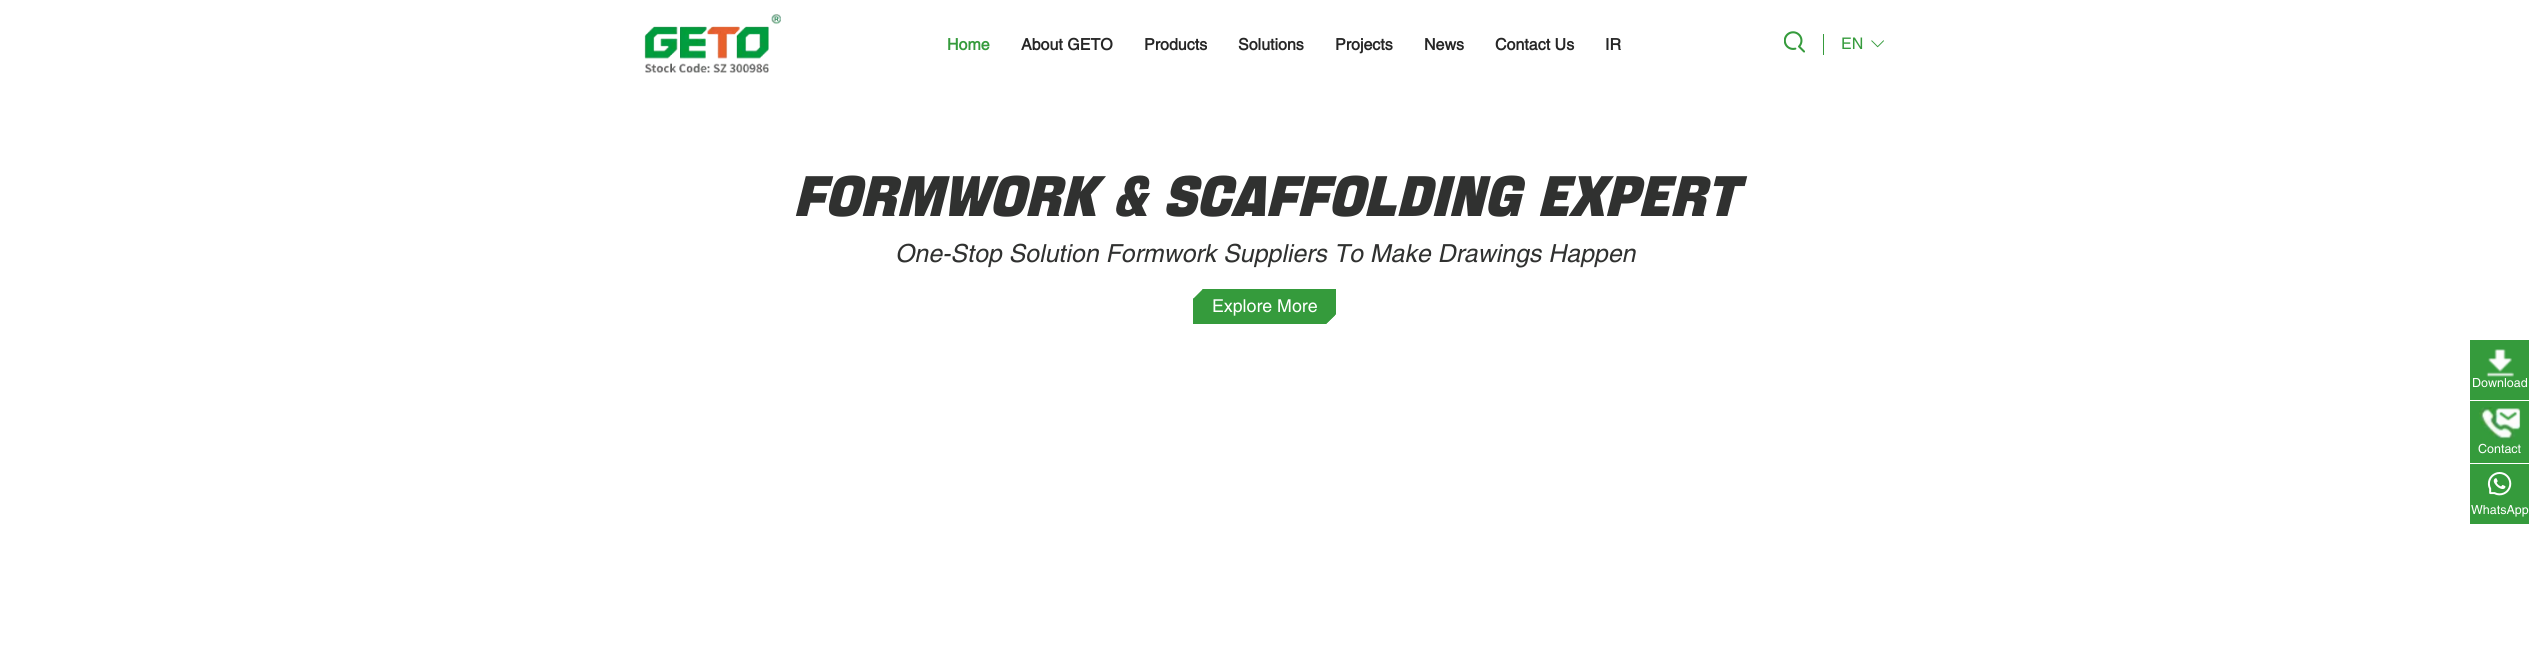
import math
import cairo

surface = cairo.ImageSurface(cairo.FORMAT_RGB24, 2529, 665)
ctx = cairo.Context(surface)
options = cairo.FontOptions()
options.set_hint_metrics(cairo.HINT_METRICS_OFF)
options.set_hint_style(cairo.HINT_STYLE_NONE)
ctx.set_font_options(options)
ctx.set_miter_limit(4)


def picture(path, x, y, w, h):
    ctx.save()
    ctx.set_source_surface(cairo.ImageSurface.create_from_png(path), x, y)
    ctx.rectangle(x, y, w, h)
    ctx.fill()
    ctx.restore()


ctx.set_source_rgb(1, 1, 1)
ctx.paint()
picture("img1.png", 644, 14, 137, 59)
ctx.select_font_face("Helvetica", cairo.FONT_SLANT_NORMAL, cairo.FONT_WEIGHT_BOLD)
ctx.set_font_size(16)
ctx.set_source_rgb(0.208, 0.608, 0.235)
ctx.move_to(947, 50)
ctx.show_text("Home")
ctx.set_source_rgb(0.149, 0.149, 0.149)
ctx.move_to(1021, 50)
ctx.show_text("About GETO")
ctx.move_to(1144, 50)
ctx.show_text("Products")
ctx.move_to(1238, 50)
ctx.show_text("Solutions")
ctx.move_to(1335, 50)
ctx.show_text("Projects")
ctx.move_to(1424, 50)
ctx.show_text("News")
ctx.move_to(1495, 50)
ctx.show_text("Contact Us")
ctx.move_to(1605, 50)
ctx.show_text("IR")
picture("img2.png", 1784, 31, 21, 22)
ctx.set_source_rgb(0.208, 0.608, 0.235)
ctx.rectangle(1823, 34, 1, 21)
ctx.fill()
ctx.select_font_face("Helvetica")
ctx.move_to(1841, 49)
ctx.show_text("EN")
picture("img3.png", 1871, 40, 13, 8)
ctx.select_font_face("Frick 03", cairo.FONT_SLANT_ITALIC)
ctx.set_font_size(56.9)
ctx.set_source_rgb(0.188, 0.192, 0.188)
ctx.move_to(793, 216)
ctx.show_text("FORMWORK & SCAFFOLDING EXPERT")
ctx.select_font_face("Helvetica", cairo.FONT_SLANT_ITALIC)
ctx.set_font_size(24.9)
ctx.move_to(895, 262)
ctx.show_text("One-Stop Solution Formwork Suppliers To Make Drawings Happen")
ctx.set_source_rgb(0.208, 0.608, 0.235)
ctx.new_path()
ctx.move_to(1193, 324)
ctx.line_to(1193, 299)
ctx.line_to(1203, 289)
ctx.line_to(1336, 289)
ctx.line_to(1336, 314)
ctx.line_to(1326, 324)
ctx.close_path()
ctx.fill()
ctx.set_fill_rule(cairo.FILL_RULE_EVEN_ODD)
ctx.new_path()
ctx.move_to(1326, 324)
ctx.line_to(1193, 324)
ctx.line_to(1193, 299)
ctx.line_to(1194, 298)
ctx.line_to(1194, 323)
ctx.line_to(1327, 323)
ctx.close_path()
ctx.move_to(1336, 314)
ctx.line_to(1336, 289)
ctx.line_to(1203, 289)
ctx.line_to(1202, 290)
ctx.line_to(1335, 290)
ctx.line_to(1335, 315)
ctx.close_path()
ctx.fill()
ctx.save()
ctx.set_fill_rule(cairo.FILL_RULE_WINDING)
ctx.rectangle(1194, 290, 141, 33)
ctx.clip()
ctx.new_path()
ctx.move_to(1204, 288.5)
ctx.line_to(1337, 288.5)
ctx.line_to(1337, 313.5)
ctx.line_to(1326, 324)
ctx.line_to(1193, 324)
ctx.line_to(1193, 299.5)
ctx.close_path()
ctx.clip()
ctx.new_path()
ctx.move_to(1186, 290)
ctx.line_to(1194.5, 281.5)
ctx.line_to(1203, 290)
ctx.line_to(1194.5, 298.5)
ctx.close_path()
ctx.set_line_width(1.3)
ctx.stroke()
ctx.restore()
ctx.select_font_face("Helvetica")
ctx.set_font_size(17.75)
ctx.set_source_rgb(1, 1, 1)
ctx.move_to(1212, 312)
ctx.show_text("Explore More")
ctx.save()
ctx.set_fill_rule(cairo.FILL_RULE_WINDING)
ctx.rectangle(1194, 290, 141, 33)
ctx.clip()
ctx.new_path()
ctx.move_to(1204, 288.5)
ctx.line_to(1337, 288.5)
ctx.line_to(1337, 313.5)
ctx.line_to(1326, 324)
ctx.line_to(1193, 324)
ctx.line_to(1193, 299.5)
ctx.close_path()
ctx.clip()
ctx.new_path()
ctx.move_to(1327, 323)
ctx.line_to(1335.5, 314.5)
ctx.line_to(1344, 323)
ctx.line_to(1335.5, 331.5)
ctx.close_path()
ctx.set_source_rgb(0.208, 0.608, 0.235)
ctx.set_line_width(1.3)
ctx.stroke()
ctx.restore()
ctx.set_source_rgb(0.208, 0.608, 0.235)
ctx.rectangle(2470, 340, 59, 60)
ctx.fill()
picture("img4.png", 2486, 349, 28, 28)
ctx.set_font_size(12.5)
ctx.set_source_rgb(1, 1, 1)
ctx.move_to(2472, 387)
ctx.show_text("Download")
ctx.set_source_rgb(0.208, 0.608, 0.235)
ctx.rectangle(2470, 401, 59, 62)
ctx.fill()
picture("img5.png", 2479, 407, 42, 34)
ctx.set_source_rgb(1, 1, 1)
ctx.move_to(2478, 453)
ctx.show_text("Contact")
ctx.set_source_rgb(0.208, 0.608, 0.235)
ctx.rectangle(2470, 464, 59, 60)
ctx.fill()
picture("img6.png", 2487, 472, 25, 24)
ctx.set_source_rgb(1, 1, 1)
ctx.move_to(2471, 514)
ctx.show_text("WhatsApp")
surface.write_to_png("page.png")
